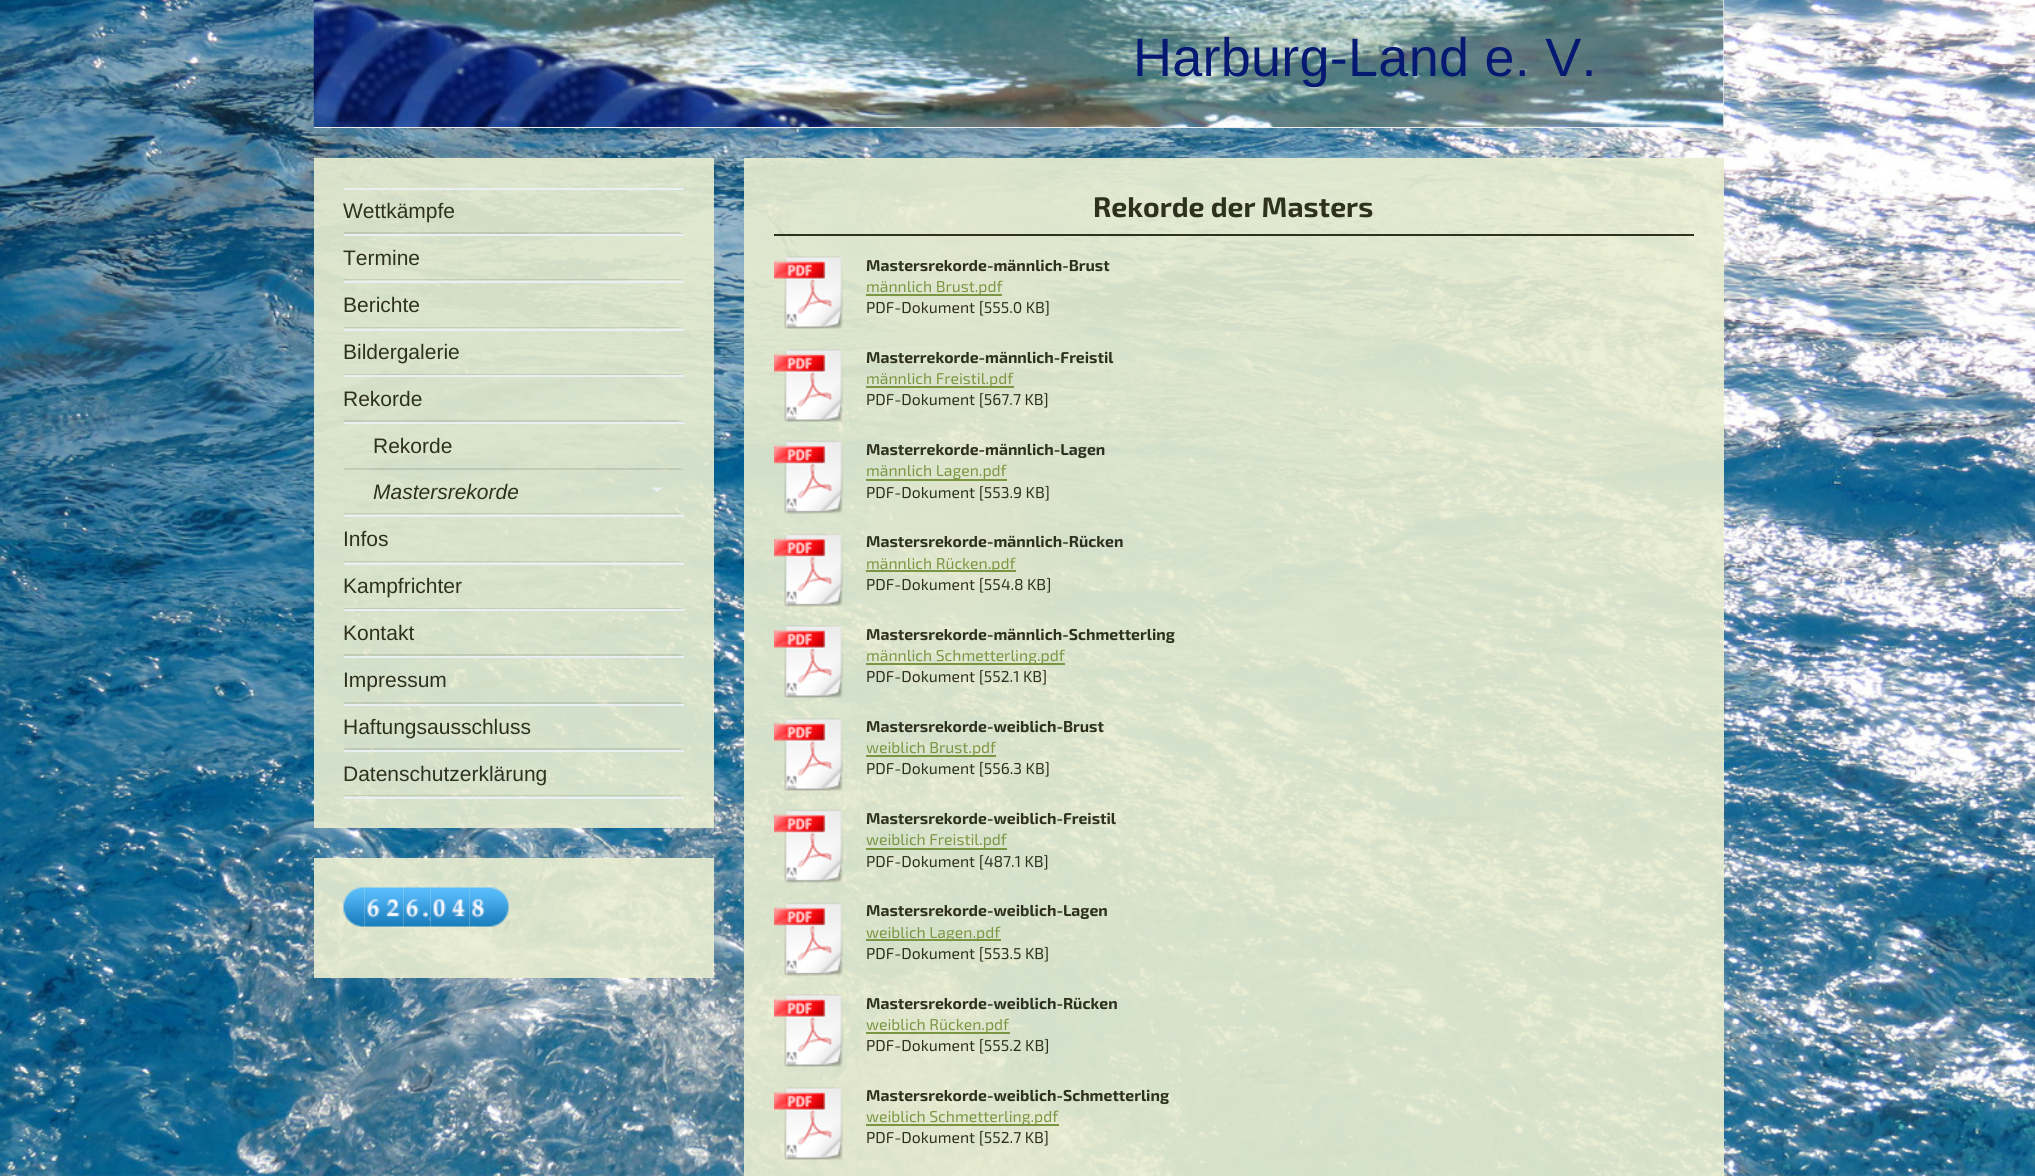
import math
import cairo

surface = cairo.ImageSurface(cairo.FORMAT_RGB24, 2035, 1176)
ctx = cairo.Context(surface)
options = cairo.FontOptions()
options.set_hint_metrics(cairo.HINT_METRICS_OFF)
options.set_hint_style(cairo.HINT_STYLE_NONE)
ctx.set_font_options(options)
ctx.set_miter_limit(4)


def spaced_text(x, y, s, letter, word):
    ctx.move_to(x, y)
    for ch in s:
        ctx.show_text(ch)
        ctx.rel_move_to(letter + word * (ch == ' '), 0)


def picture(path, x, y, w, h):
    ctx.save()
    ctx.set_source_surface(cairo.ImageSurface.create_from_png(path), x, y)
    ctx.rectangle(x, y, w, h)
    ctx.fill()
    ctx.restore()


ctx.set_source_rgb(1, 1, 1)
ctx.paint()
picture("img1.png", 0, 0, 2035, 1176)
ctx.set_source_rgb(0.933, 0.933, 0.933)
ctx.rectangle(314, 0, 1410, 128)
ctx.fill()
picture("img2.png", 313, 0, 1411, 127)
ctx.select_font_face("Liberation Sans")
ctx.set_font_size(54)
ctx.set_source_rgb(0.02, 0.098, 0.447)
spaced_text(1133, 76, "Harburg-Land e. V.", 0.25, 0)
ctx.set_source_rgba(0.914, 0.933, 0.816, 0.9)
ctx.rectangle(314, 158, 400, 670)
ctx.fill()
ctx.set_source_rgb(0.91, 0.941, 0.953)
ctx.rectangle(344, 188, 340, 2)
ctx.fill()
ctx.rectangle(344, 234, 340, 2)
ctx.fill()
ctx.set_source_rgba(0, 0, 0, 0.1)
ctx.new_path()
ctx.move_to(684, 234)
ctx.line_to(344, 234)
ctx.line_to(344, 232)
ctx.line_to(678, 232)
ctx.close_path()
ctx.fill()
ctx.set_font_size(21)
ctx.set_source_rgb(0.18, 0.192, 0.118)
ctx.move_to(343, 218)
ctx.show_text("Wettkämpfe")
ctx.set_source_rgb(0.91, 0.941, 0.953)
ctx.rectangle(344, 281, 340, 2)
ctx.fill()
ctx.set_source_rgba(0, 0, 0, 0.1)
ctx.new_path()
ctx.move_to(684, 280)
ctx.line_to(344, 280)
ctx.line_to(344, 279)
ctx.line_to(678, 279)
ctx.close_path()
ctx.fill()
ctx.set_source_rgb(0.18, 0.192, 0.118)
ctx.move_to(343, 265)
ctx.show_text("Termine")
ctx.set_source_rgb(0.91, 0.941, 0.953)
ctx.rectangle(344, 329, 340, 2)
ctx.fill()
ctx.set_source_rgba(0, 0, 0, 0.1)
ctx.new_path()
ctx.move_to(684, 328)
ctx.line_to(344, 328)
ctx.line_to(344, 327)
ctx.line_to(678, 327)
ctx.close_path()
ctx.fill()
ctx.set_source_rgb(0.18, 0.192, 0.118)
ctx.move_to(343, 312)
ctx.show_text("Berichte")
ctx.set_source_rgb(0.91, 0.941, 0.953)
ctx.rectangle(344, 375, 340, 2)
ctx.fill()
ctx.set_source_rgba(0, 0, 0, 0.1)
ctx.new_path()
ctx.move_to(684, 375)
ctx.line_to(344, 375)
ctx.line_to(344, 374)
ctx.line_to(678, 374)
ctx.close_path()
ctx.fill()
ctx.set_source_rgb(0.18, 0.192, 0.118)
ctx.move_to(343, 359)
ctx.show_text("Bildergalerie")
ctx.set_source_rgb(0.91, 0.941, 0.953)
ctx.rectangle(344, 422, 340, 2)
ctx.fill()
ctx.set_source_rgba(0, 0, 0, 0.1)
ctx.new_path()
ctx.move_to(684, 422)
ctx.line_to(344, 422)
ctx.line_to(344, 420)
ctx.line_to(678, 420)
ctx.close_path()
ctx.fill()
ctx.set_source_rgb(0.18, 0.192, 0.118)
ctx.move_to(343, 406)
ctx.show_text("Rekorde")
ctx.set_source_rgb(0.91, 0.941, 0.953)
ctx.rectangle(344, 515, 340, 2)
ctx.fill()
ctx.set_source_rgba(0, 0, 0, 0.1)
ctx.new_path()
ctx.move_to(684, 470)
ctx.line_to(344, 470)
ctx.line_to(344, 468)
ctx.line_to(678, 468)
ctx.close_path()
ctx.fill()
ctx.set_source_rgb(0.18, 0.192, 0.118)
ctx.move_to(373, 453)
ctx.show_text("Rekorde")
ctx.set_source_rgba(0, 0, 0, 0.1)
ctx.new_path()
ctx.move_to(684, 514)
ctx.line_to(344, 514)
ctx.line_to(344, 513)
ctx.line_to(678, 513)
ctx.close_path()
ctx.fill()
ctx.select_font_face("Liberation Sans", cairo.FONT_SLANT_ITALIC)
ctx.set_source_rgb(0.18, 0.192, 0.118)
ctx.move_to(373, 499)
ctx.show_text("Mastersrekorde")
ctx.set_source_rgb(0.91, 0.941, 0.953)
ctx.new_path()
ctx.move_to(651, 487.5)
ctx.line_to(663, 487.5)
ctx.line_to(657, 492)
ctx.close_path()
ctx.fill()
ctx.rectangle(344, 563, 340, 2)
ctx.fill()
ctx.set_source_rgba(0, 0, 0, 0.1)
ctx.new_path()
ctx.move_to(684, 562)
ctx.line_to(344, 562)
ctx.line_to(344, 561)
ctx.line_to(678, 561)
ctx.close_path()
ctx.fill()
ctx.select_font_face("Liberation Sans")
ctx.set_source_rgb(0.18, 0.192, 0.118)
ctx.move_to(343, 546)
ctx.show_text("Infos")
ctx.set_source_rgb(0.91, 0.941, 0.953)
ctx.rectangle(344, 609, 340, 2)
ctx.fill()
ctx.set_source_rgba(0, 0, 0, 0.1)
ctx.new_path()
ctx.move_to(684, 609)
ctx.line_to(344, 609)
ctx.line_to(344, 608)
ctx.line_to(678, 608)
ctx.close_path()
ctx.fill()
ctx.set_source_rgb(0.18, 0.192, 0.118)
ctx.move_to(343, 593)
ctx.show_text("Kampfrichter")
ctx.set_source_rgb(0.91, 0.941, 0.953)
ctx.rectangle(344, 656, 340, 2)
ctx.fill()
ctx.set_source_rgba(0, 0, 0, 0.1)
ctx.new_path()
ctx.move_to(684, 656)
ctx.line_to(344, 656)
ctx.line_to(344, 654)
ctx.line_to(678, 654)
ctx.close_path()
ctx.fill()
ctx.set_source_rgb(0.18, 0.192, 0.118)
ctx.move_to(343, 640)
ctx.show_text("Kontakt")
ctx.set_source_rgb(0.91, 0.941, 0.953)
ctx.rectangle(344, 704, 340, 2)
ctx.fill()
ctx.set_source_rgba(0, 0, 0, 0.1)
ctx.new_path()
ctx.move_to(684, 704)
ctx.line_to(344, 704)
ctx.line_to(344, 702)
ctx.line_to(678, 702)
ctx.close_path()
ctx.fill()
ctx.set_source_rgb(0.18, 0.192, 0.118)
ctx.move_to(343, 687)
ctx.show_text("Impressum")
ctx.set_source_rgb(0.91, 0.941, 0.953)
ctx.rectangle(344, 750, 340, 2)
ctx.fill()
ctx.set_source_rgba(0, 0, 0, 0.1)
ctx.new_path()
ctx.move_to(684, 750)
ctx.line_to(344, 750)
ctx.line_to(344, 748)
ctx.line_to(678, 748)
ctx.close_path()
ctx.fill()
ctx.set_source_rgb(0.18, 0.192, 0.118)
ctx.move_to(343, 734)
ctx.show_text("Haftungsausschluss")
ctx.set_source_rgb(0.91, 0.941, 0.953)
ctx.rectangle(344, 797, 340, 2)
ctx.fill()
ctx.set_source_rgba(0, 0, 0, 0.1)
ctx.new_path()
ctx.move_to(684, 796)
ctx.line_to(344, 796)
ctx.line_to(344, 795)
ctx.line_to(678, 795)
ctx.close_path()
ctx.fill()
ctx.set_source_rgb(0.18, 0.192, 0.118)
ctx.move_to(343, 781)
ctx.show_text("Datenschutzerklärung")
ctx.set_source_rgba(0.914, 0.933, 0.816, 0.9)
ctx.rectangle(314, 858, 400, 120)
ctx.fill()
picture("img3.png", 343, 887, 22, 40)
picture("img4.png", 364, 887, 20, 40)
picture("img5.png", 384, 887, 20, 40)
picture("img6.png", 403, 887, 20, 40)
picture("img7.png", 423, 887, 8, 40)
picture("img8.png", 430, 887, 20, 40)
picture("img9.png", 450, 887, 20, 40)
picture("img10.png", 469, 887, 20, 40)
picture("img11.png", 489, 887, 20, 40)
ctx.rectangle(744, 158, 980, 1018)
ctx.fill()
ctx.set_source_rgb(0.18, 0.192, 0.118)
ctx.rectangle(774, 234, 920, 2)
ctx.fill()
ctx.select_font_face("Exo 2", cairo.FONT_SLANT_NORMAL, cairo.FONT_WEIGHT_BOLD)
ctx.set_font_size(28.25)
ctx.move_to(1093, 217)
ctx.show_text("Rekorde der Masters")
picture("img12.png", 774, 256, 69, 73)
ctx.set_font_size(15.75)
ctx.move_to(866, 271)
ctx.show_text("Mastersrekorde-männlich-Brust")
ctx.set_source_rgb(0.478, 0.588, 0.259)
ctx.rectangle(866, 294, 136, 2)
ctx.fill()
ctx.select_font_face("Exo 2")
ctx.move_to(866, 292)
ctx.show_text("männlich Brust.pdf")
ctx.set_source_rgb(0.18, 0.192, 0.118)
ctx.move_to(866, 313)
ctx.show_text("PDF-Dokument [555.0 KB]")
picture("img13.png", 774, 349, 69, 73)
ctx.select_font_face("Exo 2", cairo.FONT_SLANT_NORMAL, cairo.FONT_WEIGHT_BOLD)
ctx.move_to(866, 363)
ctx.show_text("Masterrekorde-männlich-Freistil")
ctx.set_source_rgb(0.478, 0.588, 0.259)
ctx.rectangle(866, 386, 148, 2)
ctx.fill()
ctx.select_font_face("Exo 2")
ctx.move_to(866, 384)
ctx.show_text("männlich Freistil.pdf")
ctx.set_source_rgb(0.18, 0.192, 0.118)
ctx.move_to(866, 405)
ctx.show_text("PDF-Dokument [567.7 KB]")
picture("img14.png", 774, 440, 69, 74)
ctx.select_font_face("Exo 2", cairo.FONT_SLANT_NORMAL, cairo.FONT_WEIGHT_BOLD)
ctx.move_to(866, 455)
ctx.show_text("Masterrekorde-männlich-Lagen")
ctx.set_source_rgb(0.478, 0.588, 0.259)
ctx.rectangle(866, 479, 141, 2)
ctx.fill()
ctx.select_font_face("Exo 2")
ctx.move_to(866, 476)
ctx.show_text("männlich Lagen.pdf")
ctx.set_source_rgb(0.18, 0.192, 0.118)
ctx.move_to(866, 498)
ctx.show_text("PDF-Dokument [553.9 KB]")
picture("img15.png", 774, 533, 69, 74)
ctx.select_font_face("Exo 2", cairo.FONT_SLANT_NORMAL, cairo.FONT_WEIGHT_BOLD)
ctx.move_to(866, 547)
ctx.show_text("Mastersrekorde-männlich-Rücken")
ctx.set_source_rgb(0.478, 0.588, 0.259)
ctx.rectangle(866, 570, 150, 2)
ctx.fill()
ctx.select_font_face("Exo 2")
ctx.move_to(866, 569)
ctx.show_text("männlich Rücken.pdf")
ctx.set_source_rgb(0.18, 0.192, 0.118)
ctx.move_to(866, 590)
ctx.show_text("PDF-Dokument [554.8 KB]")
picture("img16.png", 774, 625, 69, 73)
ctx.select_font_face("Exo 2", cairo.FONT_SLANT_NORMAL, cairo.FONT_WEIGHT_BOLD)
ctx.move_to(866, 640)
ctx.show_text("Mastersrekorde-männlich-Schmetterling")
ctx.set_source_rgb(0.478, 0.588, 0.259)
ctx.rectangle(866, 663, 199, 2)
ctx.fill()
ctx.select_font_face("Exo 2")
ctx.move_to(866, 661)
ctx.show_text("männlich Schmetterling.pdf")
ctx.set_source_rgb(0.18, 0.192, 0.118)
ctx.move_to(866, 682)
ctx.show_text("PDF-Dokument [552.1 KB]")
picture("img17.png", 774, 718, 69, 73)
ctx.select_font_face("Exo 2", cairo.FONT_SLANT_NORMAL, cairo.FONT_WEIGHT_BOLD)
ctx.move_to(866, 732)
ctx.show_text("Mastersrekorde-weiblich-Brust")
ctx.set_source_rgb(0.478, 0.588, 0.259)
ctx.rectangle(866, 755, 130, 2)
ctx.fill()
ctx.select_font_face("Exo 2")
ctx.move_to(866, 753)
ctx.show_text("weiblich Brust.pdf")
ctx.set_source_rgb(0.18, 0.192, 0.118)
ctx.move_to(866, 774)
ctx.show_text("PDF-Dokument [556.3 KB]")
picture("img18.png", 774, 809, 69, 74)
ctx.select_font_face("Exo 2", cairo.FONT_SLANT_NORMAL, cairo.FONT_WEIGHT_BOLD)
ctx.move_to(866, 824)
ctx.show_text("Mastersrekorde-weiblich-Freistil")
ctx.set_source_rgb(0.478, 0.588, 0.259)
ctx.rectangle(866, 848, 141, 2)
ctx.fill()
ctx.select_font_face("Exo 2")
ctx.move_to(866, 845)
ctx.show_text("weiblich Freistil.pdf")
ctx.set_source_rgb(0.18, 0.192, 0.118)
ctx.move_to(866, 867)
ctx.show_text("PDF-Dokument [487.1 KB]")
picture("img19.png", 774, 902, 69, 74)
ctx.select_font_face("Exo 2", cairo.FONT_SLANT_NORMAL, cairo.FONT_WEIGHT_BOLD)
ctx.move_to(866, 916)
ctx.show_text("Mastersrekorde-weiblich-Lagen")
ctx.set_source_rgb(0.478, 0.588, 0.259)
ctx.rectangle(866, 939, 135, 2)
ctx.fill()
ctx.select_font_face("Exo 2")
ctx.move_to(866, 938)
ctx.show_text("weiblich Lagen.pdf")
ctx.set_source_rgb(0.18, 0.192, 0.118)
ctx.move_to(866, 959)
ctx.show_text("PDF-Dokument [553.5 KB]")
picture("img20.png", 774, 994, 69, 73)
ctx.select_font_face("Exo 2", cairo.FONT_SLANT_NORMAL, cairo.FONT_WEIGHT_BOLD)
ctx.move_to(866, 1009)
ctx.show_text("Mastersrekorde-weiblich-Rücken")
ctx.set_source_rgb(0.478, 0.588, 0.259)
ctx.rectangle(866, 1032, 144, 2)
ctx.fill()
ctx.select_font_face("Exo 2")
ctx.move_to(866, 1030)
ctx.show_text("weiblich Rücken.pdf")
ctx.set_source_rgb(0.18, 0.192, 0.118)
ctx.move_to(866, 1051)
ctx.show_text("PDF-Dokument [555.2 KB]")
picture("img21.png", 774, 1087, 69, 73)
ctx.select_font_face("Exo 2", cairo.FONT_SLANT_NORMAL, cairo.FONT_WEIGHT_BOLD)
ctx.move_to(866, 1101)
ctx.show_text("Mastersrekorde-weiblich-Schmetterling")
ctx.set_source_rgb(0.478, 0.588, 0.259)
ctx.rectangle(866, 1124, 193, 2)
ctx.fill()
ctx.select_font_face("Exo 2")
ctx.move_to(866, 1122)
ctx.show_text("weiblich Schmetterling.pdf")
ctx.set_source_rgb(0.18, 0.192, 0.118)
ctx.move_to(866, 1143)
ctx.show_text("PDF-Dokument [552.7 KB]")
surface.write_to_png("page.png")
